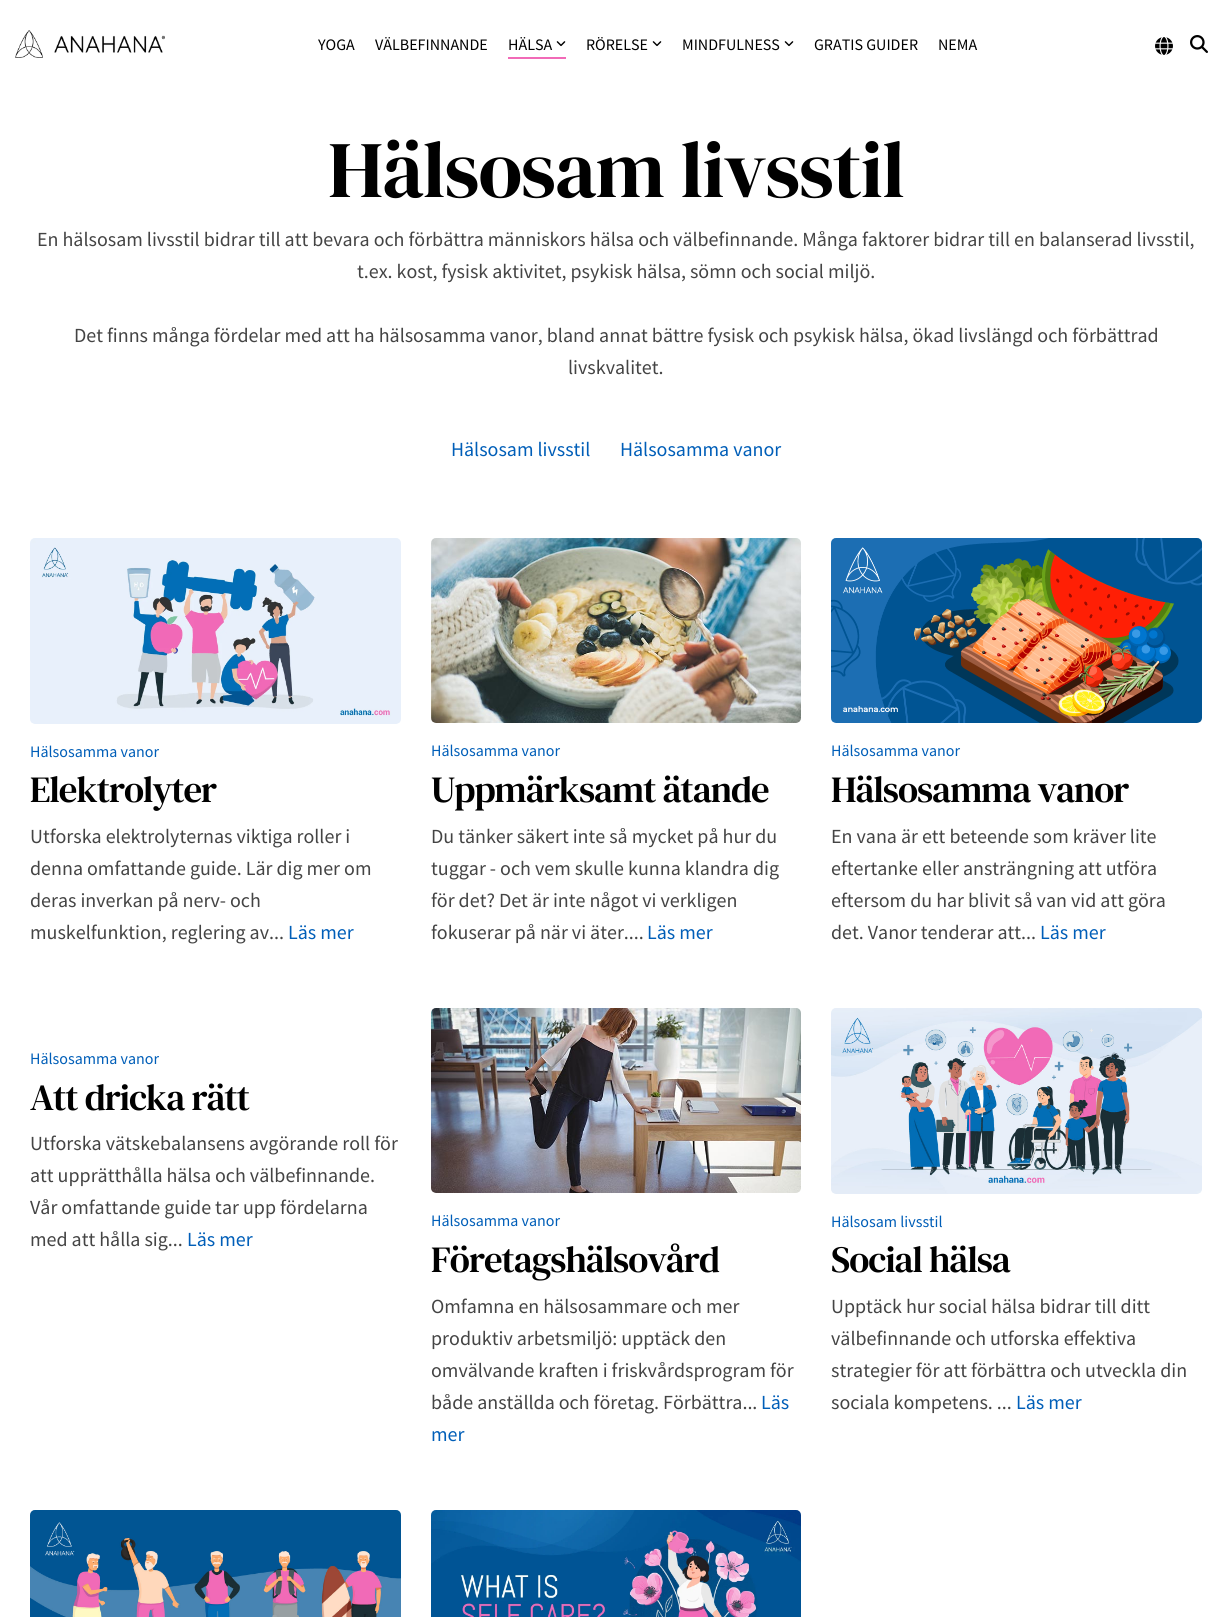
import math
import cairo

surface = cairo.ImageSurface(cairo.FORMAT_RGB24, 1232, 1617)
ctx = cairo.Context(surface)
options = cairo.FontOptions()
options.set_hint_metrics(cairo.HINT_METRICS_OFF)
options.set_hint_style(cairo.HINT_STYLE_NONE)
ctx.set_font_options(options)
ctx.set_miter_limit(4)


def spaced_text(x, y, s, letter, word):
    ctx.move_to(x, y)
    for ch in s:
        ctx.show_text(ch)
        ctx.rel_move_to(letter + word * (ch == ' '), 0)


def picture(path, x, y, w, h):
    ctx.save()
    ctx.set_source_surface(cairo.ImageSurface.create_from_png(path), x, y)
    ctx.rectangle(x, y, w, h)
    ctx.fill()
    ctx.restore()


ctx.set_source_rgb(1, 1, 1)
ctx.paint()
picture("img1.png", 15, 30, 150, 28)
ctx.select_font_face("Source Sans Pro")
ctx.set_font_size(16)
ctx.set_source_rgb(0, 0, 0)
ctx.move_to(318, 50)
ctx.show_text("YOGA")
ctx.move_to(375, 50)
ctx.show_text("VÄLBEFINNANDE")
ctx.move_to(508, 50)
ctx.show_text("HÄLSA")
picture("img2.png", 556, 41, 10, 6)
ctx.set_source_rgb(0.945, 0.416, 0.718)
ctx.rectangle(508, 57, 58, 2)
ctx.fill()
ctx.set_source_rgb(0, 0, 0)
ctx.move_to(586, 50)
ctx.show_text("RÖRELSE")
picture("img2.png", 652, 41, 10, 6)
ctx.move_to(682, 50)
ctx.show_text("MINDFULNESS")
picture("img2.png", 784, 41, 10, 6)
ctx.move_to(814, 50)
ctx.show_text("GRATIS GUIDER")
ctx.move_to(938, 50)
ctx.show_text("NEMA")
picture("img3.png", 1155, 37, 18, 18)
picture("img4.png", 1190, 35, 18, 18)
ctx.select_font_face("DM Serif Display")
ctx.set_font_size(80)
spaced_text(328, 197, "Hälsosam livsstil", -1, 0)
ctx.select_font_face("Source Sans Pro")
ctx.set_font_size(20)
ctx.set_source_rgb(0.267, 0.267, 0.267)
ctx.move_to(37, 246)
ctx.show_text("En hälsosam livsstil bidrar till att bevara och förbättra människors hälsa och välbefinnande. Många faktorer bidrar till en balanserad livsstil,")
ctx.move_to(357, 278)
ctx.show_text("t.ex. kost, fysisk aktivitet, psykisk hälsa, sömn och social miljö.")
ctx.move_to(74, 342)
ctx.show_text("Det finns många fördelar med att ha hälsosamma vanor, bland annat bättre fysisk och psykisk hälsa, ökad livslängd och förbättrad")
ctx.move_to(568, 374)
ctx.show_text("livskvalitet.")
ctx.set_source_rgb(0, 0.369, 0.722)
ctx.move_to(451, 456)
ctx.show_text("Hälsosam livsstil")
ctx.move_to(620, 456)
ctx.show_text("Hälsosamma vanor")
picture("img5.png", 30, 538, 371, 186)
ctx.set_font_size(16)
ctx.move_to(30, 757)
ctx.show_text("Hälsosamma vanor")
ctx.select_font_face("DM Serif Text")
ctx.set_font_size(37)
ctx.set_source_rgb(0, 0, 0)
spaced_text(30, 802, "Elektrolyter", -1, 0)
ctx.select_font_face("Source Sans Pro")
ctx.set_font_size(20)
ctx.set_source_rgb(0.267, 0.267, 0.267)
ctx.move_to(30, 843)
ctx.show_text("Utforska elektrolyternas viktiga roller i")
ctx.move_to(30, 875)
ctx.show_text("denna omfattande guide. Lär dig mer om")
ctx.move_to(30, 907)
ctx.show_text("deras inverkan på nerv- och")
ctx.move_to(30, 939)
ctx.show_text("muskelfunktion, reglering av...")
ctx.set_source_rgb(0, 0.369, 0.722)
ctx.move_to(288, 939)
ctx.show_text("Läs mer")
picture("img6.png", 431, 538, 370, 185)
ctx.set_font_size(16)
ctx.move_to(431, 756)
ctx.show_text("Hälsosamma vanor")
ctx.select_font_face("DM Serif Text")
ctx.set_font_size(37)
ctx.set_source_rgb(0, 0, 0)
spaced_text(431, 802, "Uppmärksamt ätande", -1, 0)
ctx.select_font_face("Source Sans Pro")
ctx.set_font_size(20)
ctx.set_source_rgb(0.267, 0.267, 0.267)
ctx.move_to(431, 843)
ctx.show_text("Du tänker säkert inte så mycket på hur du")
ctx.move_to(431, 875)
ctx.show_text("tuggar - och vem skulle kunna klandra dig")
ctx.move_to(431, 907)
ctx.show_text("för det? Det är inte något vi verkligen")
ctx.move_to(431, 939)
ctx.show_text("fokuserar på när vi äter....")
ctx.set_source_rgb(0, 0.369, 0.722)
ctx.move_to(647, 939)
ctx.show_text("Läs mer")
picture("img7.png", 831, 538, 371, 185)
ctx.set_font_size(16)
ctx.move_to(831, 756)
ctx.show_text("Hälsosamma vanor")
ctx.select_font_face("DM Serif Text")
ctx.set_font_size(37)
ctx.set_source_rgb(0, 0, 0)
spaced_text(831, 802, "Hälsosamma vanor", -1, 0)
ctx.select_font_face("Source Sans Pro")
ctx.set_font_size(20)
ctx.set_source_rgb(0.267, 0.267, 0.267)
ctx.move_to(831, 843)
ctx.show_text("En vana är ett beteende som kräver lite")
ctx.move_to(831, 875)
ctx.show_text("eftertanke eller ansträngning att utföra")
ctx.move_to(831, 907)
ctx.show_text("eftersom du har blivit så van vid att göra")
ctx.move_to(831, 939)
ctx.show_text("det. Vanor tenderar att...")
ctx.set_source_rgb(0, 0.369, 0.722)
ctx.move_to(1040, 939)
ctx.show_text("Läs mer")
ctx.set_font_size(16)
ctx.move_to(30, 1064)
ctx.show_text("Hälsosamma vanor")
ctx.select_font_face("DM Serif Text")
ctx.set_font_size(37)
ctx.set_source_rgb(0, 0, 0)
spaced_text(30, 1110, "Att dricka rätt", -1, 0)
ctx.select_font_face("Source Sans Pro")
ctx.set_font_size(20)
ctx.set_source_rgb(0.267, 0.267, 0.267)
ctx.move_to(30, 1150)
ctx.show_text("Utforska vätskebalansens avgörande roll för")
ctx.move_to(30, 1182)
ctx.show_text("att upprätthålla hälsa och välbefinnande.")
ctx.move_to(30, 1214)
ctx.show_text("Vår omfattande guide tar upp fördelarna")
ctx.move_to(30, 1246)
ctx.show_text("med att hålla sig...")
ctx.set_source_rgb(0, 0.369, 0.722)
ctx.move_to(187, 1246)
ctx.show_text("Läs mer")
picture("img8.png", 431, 1008, 370, 185)
ctx.set_font_size(16)
ctx.move_to(431, 1226)
ctx.show_text("Hälsosamma vanor")
ctx.select_font_face("DM Serif Text")
ctx.set_font_size(37)
ctx.set_source_rgb(0, 0, 0)
spaced_text(431, 1272, "Företagshälsovård", -1, 0)
ctx.select_font_face("Source Sans Pro")
ctx.set_font_size(20)
ctx.set_source_rgb(0.267, 0.267, 0.267)
ctx.move_to(431, 1313)
ctx.show_text("Omfamna en hälsosammare och mer")
ctx.move_to(431, 1345)
ctx.show_text("produktiv arbetsmiljö: upptäck den")
ctx.move_to(431, 1377)
ctx.show_text("omvälvande kraften i friskvårdsprogram för")
ctx.move_to(431, 1409)
ctx.show_text("både anställda och företag. Förbättra...")
ctx.set_source_rgb(0, 0.369, 0.722)
ctx.move_to(761, 1409)
ctx.show_text("Läs")
ctx.move_to(431, 1441)
ctx.show_text("mer")
picture("img9.png", 831, 1008, 371, 186)
ctx.set_font_size(16)
ctx.move_to(831, 1227)
ctx.show_text("Hälsosam livsstil")
ctx.select_font_face("DM Serif Text")
ctx.set_font_size(37)
ctx.set_source_rgb(0, 0, 0)
spaced_text(831, 1272, "Social hälsa", -1, 0)
ctx.select_font_face("Source Sans Pro")
ctx.set_font_size(20)
ctx.set_source_rgb(0.267, 0.267, 0.267)
ctx.move_to(831, 1313)
ctx.show_text("Upptäck hur social hälsa bidrar till ditt")
ctx.move_to(831, 1345)
ctx.show_text("välbefinnande och utforska effektiva")
ctx.move_to(831, 1377)
ctx.show_text("strategier för att förbättra och utveckla din")
ctx.move_to(831, 1409)
ctx.show_text("sociala kompetens. ...")
ctx.set_source_rgb(0, 0.369, 0.722)
ctx.move_to(1016, 1409)
ctx.show_text("Läs mer")
picture("img10.png", 30, 1510, 371, 107)
picture("img11.png", 431, 1510, 370, 107)
surface.write_to_png("page.png")
